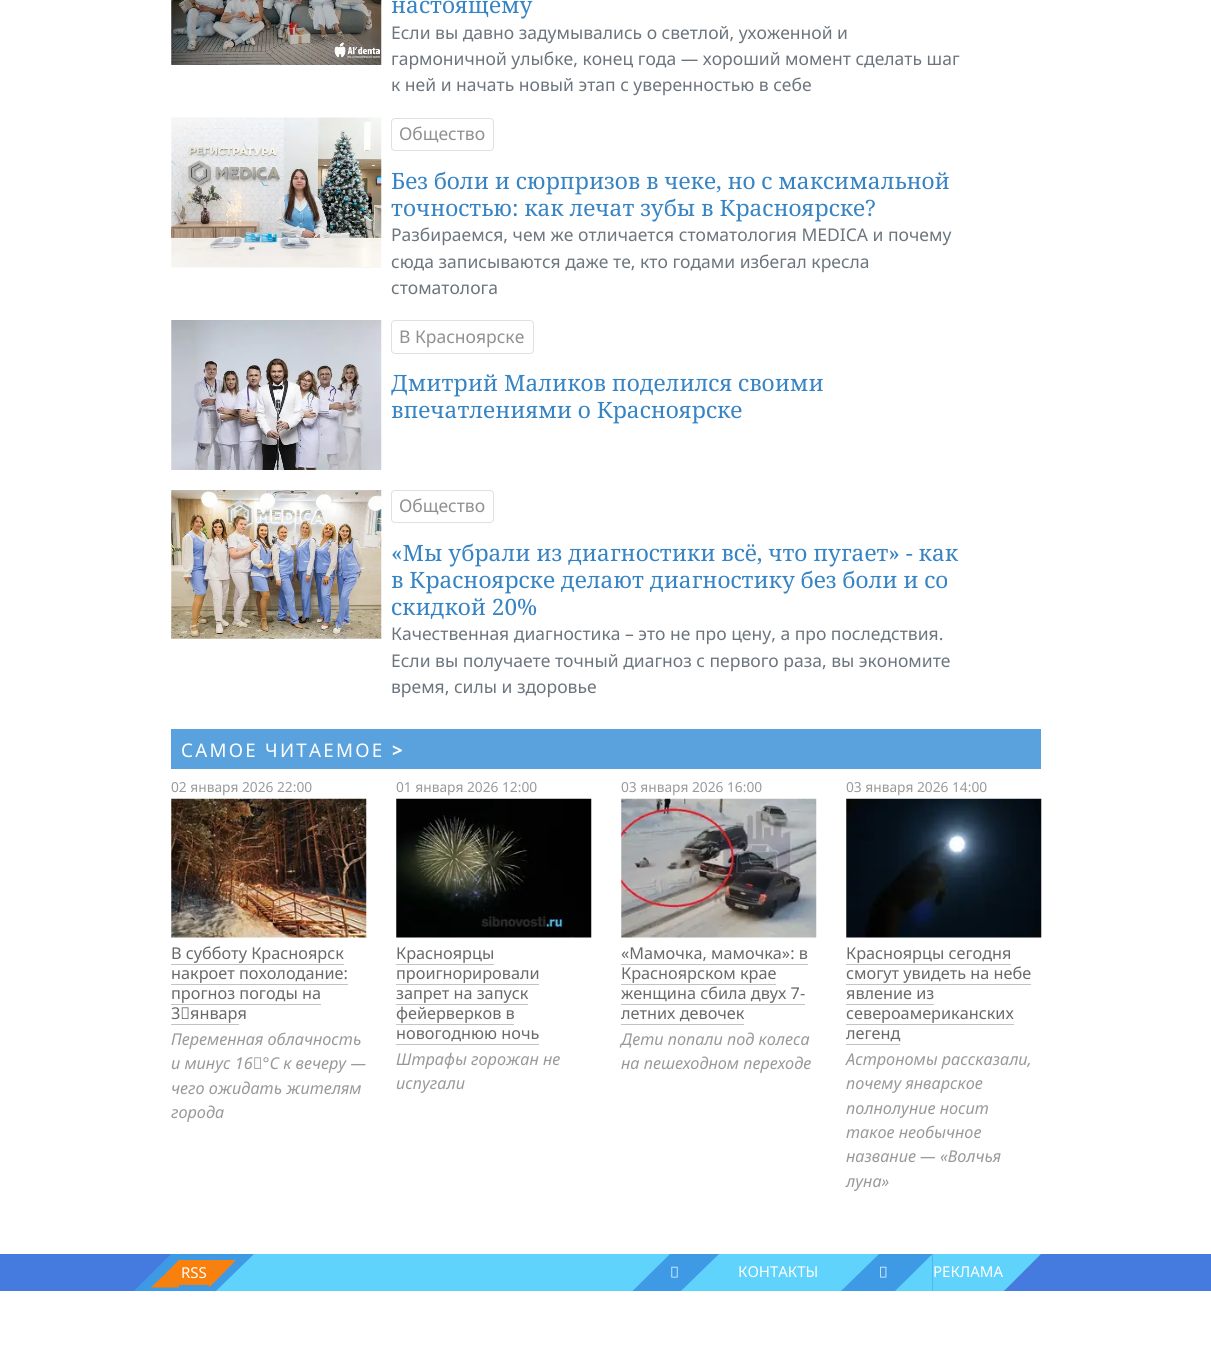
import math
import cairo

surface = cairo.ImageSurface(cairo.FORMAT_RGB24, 1211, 1361)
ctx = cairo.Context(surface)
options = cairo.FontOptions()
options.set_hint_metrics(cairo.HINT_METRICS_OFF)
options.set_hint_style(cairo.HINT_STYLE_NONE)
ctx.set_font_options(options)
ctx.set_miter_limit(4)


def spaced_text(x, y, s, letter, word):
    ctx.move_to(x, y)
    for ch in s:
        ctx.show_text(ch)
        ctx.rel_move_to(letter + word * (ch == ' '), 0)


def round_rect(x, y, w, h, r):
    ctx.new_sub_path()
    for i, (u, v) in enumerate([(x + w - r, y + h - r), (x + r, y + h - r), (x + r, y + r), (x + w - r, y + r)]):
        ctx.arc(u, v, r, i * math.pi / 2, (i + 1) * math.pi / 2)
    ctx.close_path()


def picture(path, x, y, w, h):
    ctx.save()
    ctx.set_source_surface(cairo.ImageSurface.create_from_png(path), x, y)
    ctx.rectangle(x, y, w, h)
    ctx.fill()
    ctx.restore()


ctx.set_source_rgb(1, 1, 1)
ctx.paint()
picture("img1.png", 171, 0, 211, 65)
ctx.select_font_face("Noto Serif")
ctx.set_font_size(22.5)
ctx.set_source_rgb(0.216, 0.518, 0.769)
ctx.move_to(391, 13)
ctx.show_text("настоящему")
ctx.select_font_face("Noto Sans")
ctx.set_font_size(17.5)
ctx.set_source_rgb(0.424, 0.459, 0.49)
ctx.move_to(391, 39)
ctx.show_text("Если вы давно задумывались о светлой, ухоженной и")
ctx.move_to(391, 65)
ctx.show_text("гармоничной улыбке, конец года — хороший момент сделать шаг")
ctx.move_to(391, 91)
ctx.show_text("к ней и начать новый этап с уверенностью в себе")
picture("img2.png", 171, 117, 211, 151)
round_rect(391.5, 118.5, 102, 32, 3.5)
ctx.set_source_rgb(0.878, 0.878, 0.878)
ctx.set_line_width(1)
ctx.stroke()
ctx.set_source_rgb(0.565, 0.565, 0.565)
ctx.move_to(399, 140)
ctx.show_text("Общество")
ctx.select_font_face("Noto Serif")
ctx.set_font_size(22.5)
ctx.set_source_rgb(0.216, 0.518, 0.769)
ctx.move_to(391, 189)
ctx.show_text("Без боли и сюрпризов в чеке, но с максимальной")
ctx.move_to(391, 216)
ctx.show_text("точностью: как лечат зубы в Красноярске?")
ctx.select_font_face("Noto Sans")
ctx.set_font_size(17.5)
ctx.set_source_rgb(0.424, 0.459, 0.49)
ctx.move_to(391, 241)
ctx.show_text("Разбираемся, чем же отличается стоматология MEDICA и почему")
ctx.move_to(391, 268)
ctx.show_text("сюда записываются даже те, кто годами избегал кресла")
ctx.move_to(391, 294)
ctx.show_text("стоматолога")
picture("img3.png", 171, 320, 211, 150)
round_rect(391.5, 320.5, 142, 33, 3.5)
ctx.set_source_rgb(0.878, 0.878, 0.878)
ctx.stroke()
ctx.set_source_rgb(0.565, 0.565, 0.565)
ctx.move_to(399, 343)
ctx.show_text("В Красноярске")
ctx.select_font_face("Noto Serif")
ctx.set_font_size(22.5)
ctx.set_source_rgb(0.216, 0.518, 0.769)
ctx.move_to(391, 391)
ctx.show_text("Дмитрий Маликов поделился своими")
ctx.move_to(391, 418)
ctx.show_text("впечатлениями о Красноярске")
picture("img4.png", 171, 490, 211, 149)
round_rect(391.5, 490.5, 102, 32, 3.5)
ctx.set_source_rgb(0.878, 0.878, 0.878)
ctx.stroke()
ctx.select_font_face("Noto Sans")
ctx.set_font_size(17.5)
ctx.set_source_rgb(0.565, 0.565, 0.565)
ctx.move_to(399, 512)
ctx.show_text("Общество")
ctx.select_font_face("Noto Serif")
ctx.set_font_size(22.5)
ctx.set_source_rgb(0.216, 0.518, 0.769)
ctx.move_to(391, 561)
ctx.show_text("«Мы убрали из диагностики всё, что пугает» - как")
ctx.move_to(391, 588)
ctx.show_text("в Красноярске делают диагностику без боли и со")
ctx.move_to(391, 615)
ctx.show_text("скидкой 20%")
ctx.select_font_face("Noto Sans")
ctx.set_font_size(17.5)
ctx.set_source_rgb(0.424, 0.459, 0.49)
ctx.move_to(391, 640)
ctx.show_text("Качественная диагностика – это не про цену, а про последствия.")
ctx.move_to(391, 667)
ctx.show_text("Если вы получаете точный диагноз с первого раза, вы экономите")
ctx.move_to(391, 693)
ctx.show_text("время, силы и здоровье")
ctx.set_source_rgb(0.349, 0.635, 0.871)
ctx.rectangle(171, 729, 870, 40)
ctx.fill()
ctx.set_font_size(18.75)
ctx.set_source_rgb(1, 1, 1)
spaced_text(181, 757, "САМОЕ ЧИТАЕМОЕ", 2.25, 0)
ctx.select_font_face("Noto Sans", cairo.FONT_SLANT_NORMAL, cairo.FONT_WEIGHT_BOLD)
spaced_text(392, 757, ">", 2.25, 0)
ctx.select_font_face("Noto Sans")
ctx.set_font_size(13.75)
ctx.set_source_rgb(0.6, 0.6, 0.6)
ctx.move_to(171, 792)
ctx.show_text("02 января 2026 22:00")
picture("img5.png", 171, 798, 196, 140)
ctx.set_font_size(16.25)
ctx.set_source_rgb(0.412, 0.412, 0.412)
ctx.move_to(171, 959)
ctx.show_text("В субботу Красноярск")
ctx.set_source_rgb(0.765, 0.765, 0.765)
ctx.rectangle(171, 964, 173, 1)
ctx.fill()
ctx.set_source_rgb(0.412, 0.412, 0.412)
ctx.move_to(171, 979)
ctx.show_text("накроет похолодание:")
ctx.set_source_rgb(0.765, 0.765, 0.765)
ctx.rectangle(171, 984, 177, 1)
ctx.fill()
ctx.set_source_rgb(0.412, 0.412, 0.412)
ctx.move_to(171, 999)
ctx.show_text("прогноз погоды на")
ctx.set_source_rgb(0.765, 0.765, 0.765)
ctx.rectangle(171, 1004, 150, 1)
ctx.fill()
ctx.set_source_rgb(0.412, 0.412, 0.412)
ctx.move_to(171, 1019)
ctx.show_text("3 января")
ctx.set_source_rgb(0.765, 0.765, 0.765)
ctx.rectangle(171, 1024, 68, 1)
ctx.fill()
ctx.select_font_face("Noto Sans", cairo.FONT_SLANT_ITALIC)
ctx.set_source_rgb(0.6, 0.6, 0.6)
ctx.move_to(171, 1045)
ctx.show_text("Переменная облачность")
ctx.move_to(171, 1069)
ctx.show_text("и минус 16 °C к вечеру —")
ctx.move_to(171, 1094)
ctx.show_text("чего ожидать жителям")
ctx.move_to(171, 1118)
ctx.show_text("города")
ctx.select_font_face("Noto Sans")
ctx.set_font_size(13.75)
ctx.move_to(396, 792)
ctx.show_text("01 января 2026 12:00")
picture("img6.png", 396, 798, 196, 140)
ctx.set_font_size(16.25)
ctx.set_source_rgb(0.412, 0.412, 0.412)
ctx.move_to(396, 959)
ctx.show_text("Красноярцы")
ctx.set_source_rgb(0.765, 0.765, 0.765)
ctx.rectangle(396, 964, 98, 1)
ctx.fill()
ctx.set_source_rgb(0.412, 0.412, 0.412)
ctx.move_to(396, 979)
ctx.show_text("проигнорировали")
ctx.set_source_rgb(0.765, 0.765, 0.765)
ctx.rectangle(396, 984, 143, 1)
ctx.fill()
ctx.set_source_rgb(0.412, 0.412, 0.412)
ctx.move_to(396, 999)
ctx.show_text("запрет на запуск")
ctx.set_source_rgb(0.765, 0.765, 0.765)
ctx.rectangle(396, 1004, 132, 1)
ctx.fill()
ctx.set_source_rgb(0.412, 0.412, 0.412)
ctx.move_to(396, 1019)
ctx.show_text("фейерверков в")
ctx.set_source_rgb(0.765, 0.765, 0.765)
ctx.rectangle(396, 1024, 118, 1)
ctx.fill()
ctx.set_source_rgb(0.412, 0.412, 0.412)
ctx.move_to(396, 1039)
ctx.show_text("новогоднюю ночь")
ctx.set_source_rgb(0.765, 0.765, 0.765)
ctx.rectangle(396, 1044, 143, 1)
ctx.fill()
ctx.select_font_face("Noto Sans", cairo.FONT_SLANT_ITALIC)
ctx.set_source_rgb(0.6, 0.6, 0.6)
ctx.move_to(396, 1065)
ctx.show_text("Штрафы горожан не")
ctx.move_to(396, 1089)
ctx.show_text("испугали")
ctx.select_font_face("Noto Sans")
ctx.set_font_size(13.75)
ctx.move_to(621, 792)
ctx.show_text("03 января 2026 16:00")
picture("img7.png", 621, 798, 196, 140)
ctx.set_font_size(16.25)
ctx.set_source_rgb(0.412, 0.412, 0.412)
ctx.move_to(621, 959)
ctx.show_text("«Мамочка, мамочка»: в")
ctx.set_source_rgb(0.765, 0.765, 0.765)
ctx.rectangle(621, 964, 187, 1)
ctx.fill()
ctx.set_source_rgb(0.412, 0.412, 0.412)
ctx.move_to(621, 979)
ctx.show_text("Красноярском крае")
ctx.set_source_rgb(0.765, 0.765, 0.765)
ctx.rectangle(621, 984, 155, 1)
ctx.fill()
ctx.set_source_rgb(0.412, 0.412, 0.412)
ctx.move_to(621, 999)
ctx.show_text("женщина сбила двух 7-")
ctx.set_source_rgb(0.765, 0.765, 0.765)
ctx.rectangle(621, 1004, 184, 1)
ctx.fill()
ctx.set_source_rgb(0.412, 0.412, 0.412)
ctx.move_to(621, 1019)
ctx.show_text("летних девочек")
ctx.set_source_rgb(0.765, 0.765, 0.765)
ctx.rectangle(621, 1024, 123, 1)
ctx.fill()
ctx.select_font_face("Noto Sans", cairo.FONT_SLANT_ITALIC)
ctx.set_source_rgb(0.6, 0.6, 0.6)
ctx.move_to(621, 1045)
ctx.show_text("Дети попали под колеса")
ctx.move_to(621, 1069)
ctx.show_text("на пешеходном переходе")
ctx.select_font_face("Noto Sans")
ctx.set_font_size(13.75)
ctx.move_to(846, 792)
ctx.show_text("03 января 2026 14:00")
picture("img8.png", 846, 798, 196, 140)
ctx.set_font_size(16.25)
ctx.set_source_rgb(0.412, 0.412, 0.412)
ctx.move_to(846, 959)
ctx.show_text("Красноярцы сегодня")
ctx.set_source_rgb(0.765, 0.765, 0.765)
ctx.rectangle(846, 964, 165, 1)
ctx.fill()
ctx.set_source_rgb(0.412, 0.412, 0.412)
ctx.move_to(846, 979)
ctx.show_text("смогут увидеть на небе")
ctx.set_source_rgb(0.765, 0.765, 0.765)
ctx.rectangle(846, 984, 185, 1)
ctx.fill()
ctx.set_source_rgb(0.412, 0.412, 0.412)
ctx.move_to(846, 999)
ctx.show_text("явление из")
ctx.set_source_rgb(0.765, 0.765, 0.765)
ctx.rectangle(846, 1004, 88, 1)
ctx.fill()
ctx.set_source_rgb(0.412, 0.412, 0.412)
ctx.move_to(846, 1019)
ctx.show_text("североамериканских")
ctx.set_source_rgb(0.765, 0.765, 0.765)
ctx.rectangle(846, 1024, 168, 1)
ctx.fill()
ctx.set_source_rgb(0.412, 0.412, 0.412)
ctx.move_to(846, 1039)
ctx.show_text("легенд")
ctx.set_source_rgb(0.765, 0.765, 0.765)
ctx.rectangle(846, 1044, 54, 1)
ctx.fill()
ctx.select_font_face("Noto Sans", cairo.FONT_SLANT_ITALIC)
ctx.set_source_rgb(0.6, 0.6, 0.6)
ctx.move_to(846, 1065)
ctx.show_text("Астрономы рассказали,")
ctx.move_to(846, 1089)
ctx.show_text("почему январское")
ctx.move_to(846, 1114)
ctx.show_text("полнолуние носит")
ctx.move_to(846, 1138)
ctx.show_text("такое необычное")
ctx.move_to(846, 1162)
ctx.show_text("название — «Волчья")
ctx.move_to(846, 1187)
ctx.show_text("луна»")
ctx.set_source_rgb(0.271, 0.478, 0.871)
ctx.rectangle(0, 1254, 1211, 37)
ctx.fill()
ctx.set_source_rgb(0.247, 0.604, 0.902)
ctx.new_path()
ctx.move_to(171, 1254)
ctx.line_to(171, 1291)
ctx.line_to(134, 1291)
ctx.close_path()
ctx.fill()
ctx.rectangle(171, 1254, 83, 37)
ctx.fill()
ctx.set_source_rgb(0.976, 0.502, 0.047)
ctx.rectangle(178, 1260, 32, 25)
ctx.fill()
ctx.new_path()
ctx.move_to(179, 1260)
ctx.line_to(179, 1287.5)
ctx.line_to(165, 1274)
ctx.close_path()
ctx.fill()
ctx.new_path()
ctx.move_to(179, 1287.5)
ctx.line_to(151, 1287.5)
ctx.line_to(165, 1274)
ctx.close_path()
ctx.fill()
ctx.select_font_face("Noto Sans")
ctx.set_font_size(15)
ctx.set_source_rgb(1, 1, 1)
ctx.move_to(181, 1278)
ctx.show_text("RSS")
ctx.set_source_rgb(0.373, 0.827, 0.984)
ctx.new_path()
ctx.move_to(254, 1254)
ctx.line_to(254, 1291)
ctx.line_to(216, 1291)
ctx.close_path()
ctx.fill()
ctx.set_source_rgb(0.976, 0.502, 0.047)
ctx.new_path()
ctx.move_to(209, 1260)
ctx.line_to(236, 1260)
ctx.line_to(222.5, 1274)
ctx.close_path()
ctx.fill()
ctx.new_path()
ctx.move_to(209, 1287.5)
ctx.line_to(209, 1260)
ctx.line_to(222.5, 1274)
ctx.close_path()
ctx.fill()
ctx.set_source_rgb(0.373, 0.827, 0.984)
ctx.rectangle(254, 1254, 416, 37)
ctx.fill()
ctx.set_source_rgb(0.247, 0.604, 0.902)
ctx.new_path()
ctx.move_to(670, 1254)
ctx.line_to(670, 1291)
ctx.line_to(632.5, 1291)
ctx.close_path()
ctx.fill()
ctx.rectangle(670, 1254, 49, 37)
ctx.fill()
picture("img9.png", 671, 1266, 7, 12)
ctx.set_source_rgb(0.373, 0.827, 0.984)
ctx.new_path()
ctx.move_to(719, 1254)
ctx.line_to(719, 1291)
ctx.line_to(681, 1291)
ctx.close_path()
ctx.fill()
ctx.rectangle(719, 1254, 160, 37)
ctx.fill()
ctx.set_source_rgb(1, 1, 1)
ctx.move_to(738, 1277)
ctx.show_text("КОНТАКТЫ")
ctx.set_source_rgb(0.247, 0.604, 0.902)
ctx.new_path()
ctx.move_to(879, 1254)
ctx.line_to(879, 1291)
ctx.line_to(841, 1291)
ctx.close_path()
ctx.fill()
ctx.rectangle(879, 1254, 54, 37)
ctx.fill()
picture("img10.png", 880, 1266, 7, 12)
ctx.set_source_rgb(0.373, 0.827, 0.984)
ctx.new_path()
ctx.move_to(932.5, 1254)
ctx.line_to(932.5, 1291)
ctx.line_to(895, 1291)
ctx.close_path()
ctx.fill()
ctx.rectangle(933, 1254, 108, 37)
ctx.fill()
ctx.set_source_rgb(1, 1, 1)
ctx.move_to(933, 1277)
ctx.show_text("РЕКЛАМА")
ctx.set_source_rgb(0.271, 0.478, 0.871)
ctx.new_path()
ctx.move_to(1041, 1254)
ctx.line_to(1041, 1291)
ctx.line_to(1004, 1291)
ctx.close_path()
ctx.fill()
surface.write_to_png("page.png")
